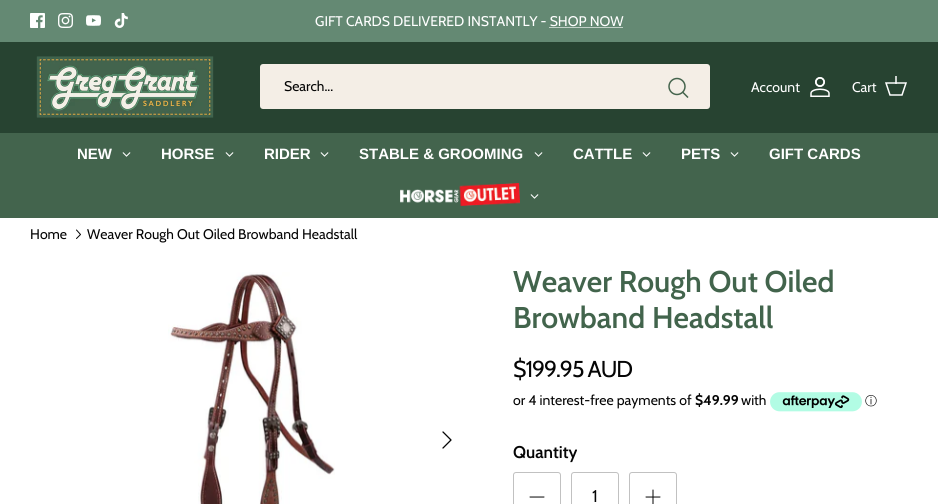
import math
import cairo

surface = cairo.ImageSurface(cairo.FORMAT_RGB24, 938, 504)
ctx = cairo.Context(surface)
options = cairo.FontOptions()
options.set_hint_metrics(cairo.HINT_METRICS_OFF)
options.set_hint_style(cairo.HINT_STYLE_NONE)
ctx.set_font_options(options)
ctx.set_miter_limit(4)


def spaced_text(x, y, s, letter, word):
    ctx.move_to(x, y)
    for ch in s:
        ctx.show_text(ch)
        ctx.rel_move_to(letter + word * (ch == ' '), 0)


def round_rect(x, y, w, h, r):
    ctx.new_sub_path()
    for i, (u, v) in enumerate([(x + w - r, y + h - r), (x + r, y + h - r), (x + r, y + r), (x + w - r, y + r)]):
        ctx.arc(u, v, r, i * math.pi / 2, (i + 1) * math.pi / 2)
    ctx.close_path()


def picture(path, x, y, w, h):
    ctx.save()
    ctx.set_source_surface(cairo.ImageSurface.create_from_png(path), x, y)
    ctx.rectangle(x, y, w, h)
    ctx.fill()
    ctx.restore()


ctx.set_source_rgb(1, 1, 1)
ctx.paint()
ctx.set_source_rgb(0.392, 0.537, 0.451)
ctx.rectangle(0, 0, 938, 42)
ctx.fill()
picture("img1.png", 30, 13, 15, 15)
picture("img2.png", 58, 13, 15, 15)
picture("img3.png", 86, 15, 15, 11)
picture("img4.png", 114, 13, 14, 15)
ctx.select_font_face("Cabin")
ctx.set_font_size(14)
ctx.set_source_rgb(1, 1, 1)
ctx.move_to(315, 26)
ctx.show_text("GIFT CARDS DELIVERED INSTANTLY - SHOP NOW")
ctx.set_source_rgb(0.757, 0.816, 0.78)
ctx.rectangle(549, 27, 74, 1)
ctx.fill()
ctx.set_source_rgb(0.153, 0.263, 0.192)
ctx.rectangle(0, 42, 938, 91)
ctx.fill()
picture("img5.png", 36, 56, 178, 62)
ctx.set_source_rgb(0.957, 0.933, 0.902)
round_rect(260, 64, 450, 45, 3)
ctx.fill()
ctx.set_source_rgb(0.02, 0.02, 0.02)
ctx.move_to(284, 91)
ctx.show_text("Search...")
ctx.new_path()
ctx.arc(677, 86.5, 8, 0, 2 * math.pi)
ctx.set_source_rgb(0.271, 0.392, 0.302)
ctx.set_line_width(1.5)
ctx.stroke()
ctx.new_path()
ctx.move_to(683, 92.5)
ctx.line_to(687.5, 97)
ctx.set_line_cap(cairo.LINE_CAP_SQUARE)
ctx.stroke()
ctx.set_source_rgb(1, 1, 1)
ctx.move_to(751, 92)
ctx.show_text("Account")
picture("img6.png", 810, 77, 20, 20)
ctx.move_to(852, 92)
ctx.show_text("Cart")
ctx.new_path()
ctx.move_to(886, 83)
ctx.line_to(906, 83)
ctx.line_to(902, 95)
ctx.line_to(890, 95)
ctx.close_path()
ctx.set_line_cap(cairo.LINE_CAP_BUTT)
ctx.stroke()
ctx.set_source_rgba(1, 1, 1, 0.75)
ctx.rectangle(895, 76, 2, 8)
ctx.fill()
ctx.set_source_rgb(0.263, 0.392, 0.302)
ctx.rectangle(0, 133, 938, 85)
ctx.fill()
ctx.select_font_face("Liberation Sans", cairo.FONT_SLANT_NORMAL, cairo.FONT_WEIGHT_BOLD)
ctx.set_font_size(15)
ctx.set_source_rgb(1, 1, 1)
ctx.move_to(77, 159)
ctx.show_text("NEW")
picture("img7.png", 122, 152, 9, 5)
ctx.move_to(161, 159)
ctx.show_text("HORSE")
picture("img7.png", 225, 152, 9, 5)
ctx.move_to(264, 159)
ctx.show_text("RIDER")
picture("img7.png", 320, 152, 9, 5)
ctx.move_to(359, 159)
ctx.show_text("STABLE & GROOMING")
picture("img7.png", 534, 152, 9, 5)
ctx.move_to(573, 159)
ctx.show_text("CATTLE")
picture("img7.png", 642, 152, 9, 5)
ctx.move_to(681, 159)
ctx.show_text("PETS")
picture("img7.png", 730, 152, 9, 5)
ctx.move_to(769, 159)
ctx.show_text("GIFT CARDS")
picture("img8.png", 400, 183, 120, 23)
picture("img7.png", 530, 194, 9, 5)
ctx.select_font_face("Cabin")
ctx.set_font_size(14)
ctx.set_source_rgb(0.02, 0.02, 0.02)
ctx.move_to(30, 239)
ctx.show_text("Home")
ctx.new_path()
ctx.move_to(76.5, 238.5)
ctx.line_to(80.5, 234.5)
ctx.line_to(76.5, 230)
ctx.set_line_width(1)
ctx.set_line_cap(cairo.LINE_CAP_ROUND)
ctx.set_line_join(cairo.LINE_JOIN_ROUND)
ctx.stroke()
ctx.move_to(87, 239)
ctx.show_text("Weaver Rough Out Oiled Browband Headstall")
picture("img9.png", 168, 272, 167, 232)
ctx.new_path()
ctx.move_to(443, 448)
ctx.line_to(451, 440)
ctx.line_to(443, 432)
ctx.set_line_width(1.3)
ctx.stroke()
ctx.select_font_face("Cabin SemiBold")
ctx.set_font_size(30)
ctx.set_source_rgb(0.259, 0.392, 0.298)
ctx.move_to(513, 292)
ctx.show_text("Weaver Rough Out Oiled")
ctx.move_to(513, 328)
ctx.show_text("Browband Headstall")
ctx.select_font_face("Cabin")
ctx.set_font_size(23)
ctx.set_source_rgb(0.02, 0.02, 0.02)
spaced_text(513, 377, "$199.95 AUD", -1, 0)
ctx.set_font_size(14)
ctx.move_to(513, 405)
ctx.show_text("or 4 interest-free payments of")
ctx.select_font_face("Cabin", cairo.FONT_SLANT_NORMAL, cairo.FONT_WEIGHT_BOLD)
ctx.move_to(695, 405)
ctx.show_text("$49.99")
ctx.select_font_face("Cabin")
ctx.move_to(741, 405)
ctx.show_text("with")
picture("img10.png", 770, 392, 92, 20)
ctx.select_font_face("WenQuanYi Zen Hei Medium")
ctx.set_font_size(12)
ctx.move_to(865, 405)
ctx.show_text("ⓘ")
ctx.select_font_face("Cabin SemiBold")
ctx.set_font_size(17)
ctx.move_to(513, 458)
ctx.show_text("Quantity")
round_rect(513.5, 472.5, 47, 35, 2.5)
ctx.set_source_rgb(0.757, 0.757, 0.757)
ctx.set_line_width(1)
ctx.set_line_cap(cairo.LINE_CAP_BUTT)
ctx.set_line_join(cairo.LINE_JOIN_MITER)
ctx.stroke()
ctx.new_path()
ctx.move_to(530, 497)
ctx.line_to(544, 497)
ctx.set_source_rgb(0.02, 0.02, 0.02)
ctx.set_line_cap(cairo.LINE_CAP_ROUND)
ctx.set_line_join(cairo.LINE_JOIN_ROUND)
ctx.stroke()
round_rect(571.5, 472.5, 47, 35, 2.5)
ctx.set_source_rgb(0.757, 0.757, 0.757)
ctx.set_line_cap(cairo.LINE_CAP_BUTT)
ctx.set_line_join(cairo.LINE_JOIN_MITER)
ctx.stroke()
ctx.select_font_face("Cabin")
ctx.set_source_rgb(0.02, 0.02, 0.02)
ctx.move_to(592, 502)
ctx.show_text("1")
round_rect(629.5, 472.5, 47, 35, 2.5)
ctx.set_source_rgb(0.757, 0.757, 0.757)
ctx.stroke()
ctx.new_path()
ctx.move_to(653, 490)
ctx.line_to(653, 504)
ctx.move_to(646, 497)
ctx.line_to(660, 497)
ctx.set_source_rgb(0.02, 0.02, 0.02)
ctx.set_line_cap(cairo.LINE_CAP_ROUND)
ctx.set_line_join(cairo.LINE_JOIN_ROUND)
ctx.stroke()
surface.write_to_png("page.png")
